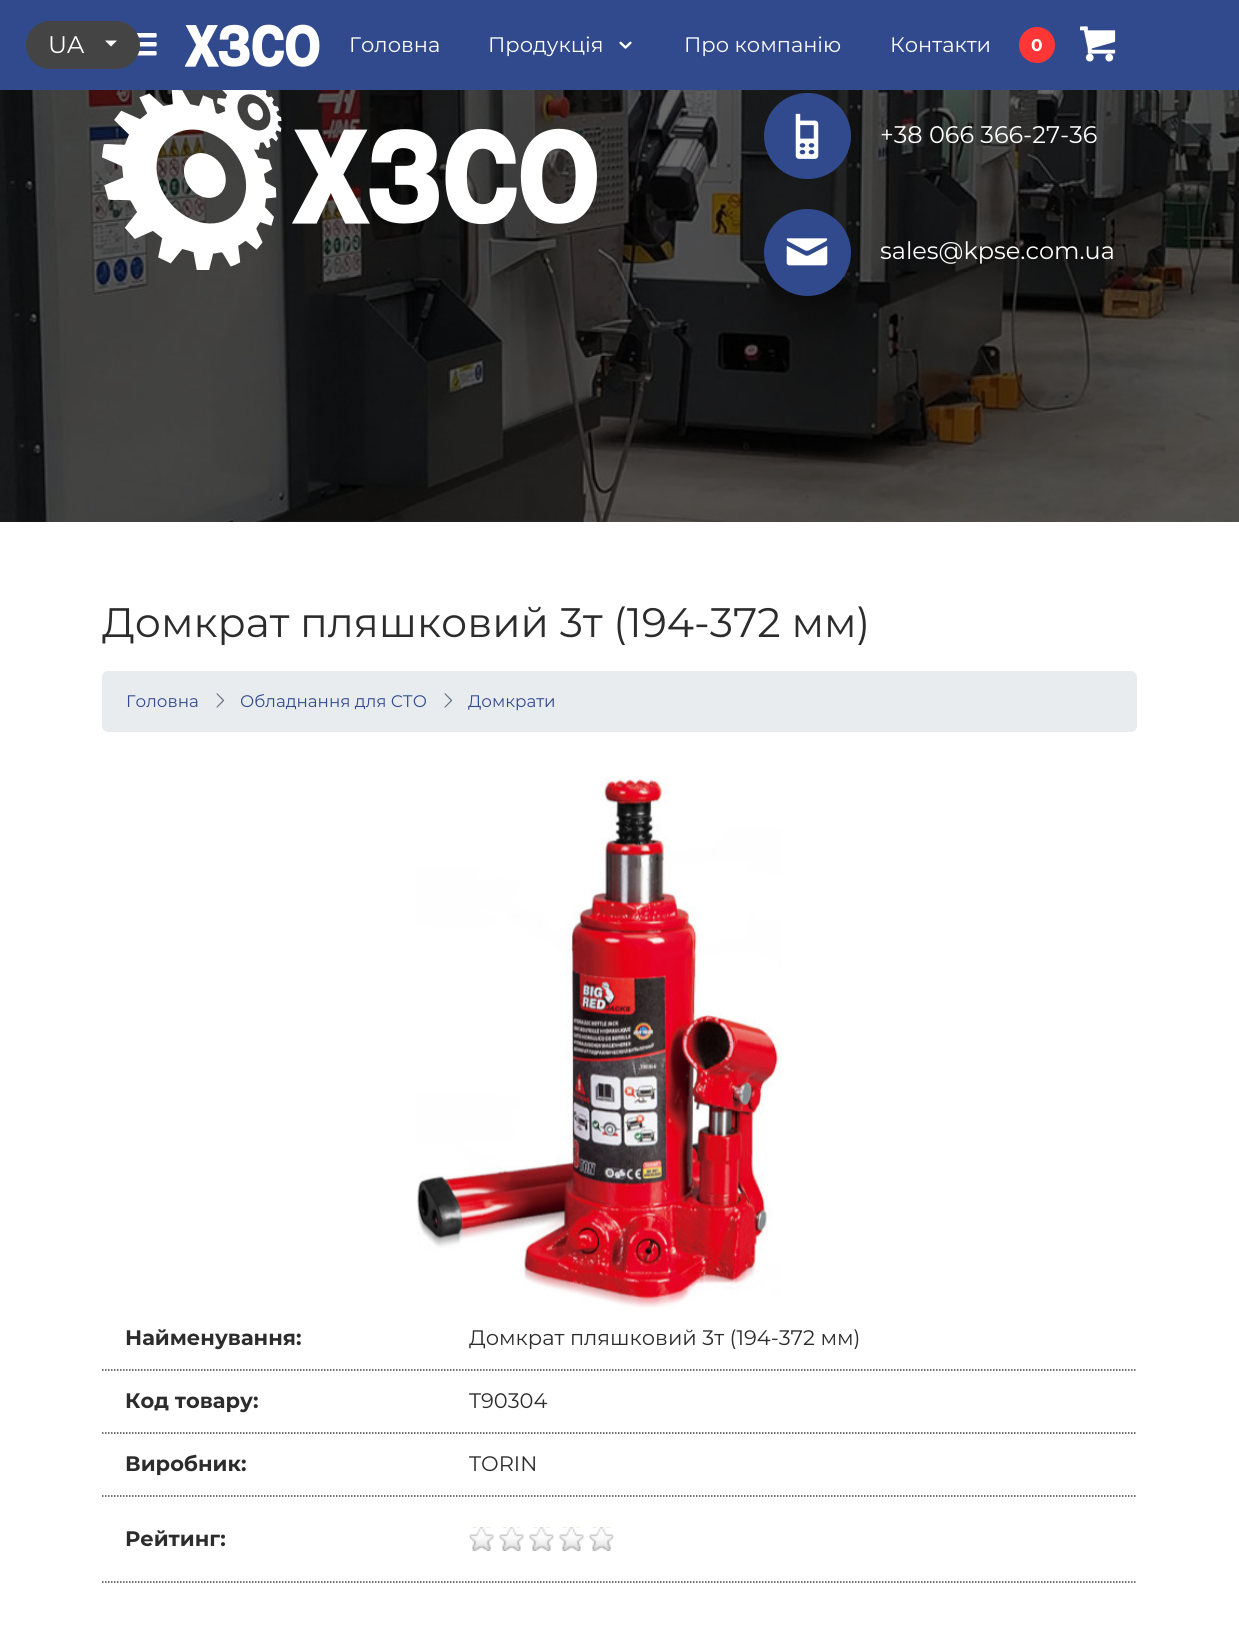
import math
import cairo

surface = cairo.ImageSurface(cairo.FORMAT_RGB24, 1239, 1633)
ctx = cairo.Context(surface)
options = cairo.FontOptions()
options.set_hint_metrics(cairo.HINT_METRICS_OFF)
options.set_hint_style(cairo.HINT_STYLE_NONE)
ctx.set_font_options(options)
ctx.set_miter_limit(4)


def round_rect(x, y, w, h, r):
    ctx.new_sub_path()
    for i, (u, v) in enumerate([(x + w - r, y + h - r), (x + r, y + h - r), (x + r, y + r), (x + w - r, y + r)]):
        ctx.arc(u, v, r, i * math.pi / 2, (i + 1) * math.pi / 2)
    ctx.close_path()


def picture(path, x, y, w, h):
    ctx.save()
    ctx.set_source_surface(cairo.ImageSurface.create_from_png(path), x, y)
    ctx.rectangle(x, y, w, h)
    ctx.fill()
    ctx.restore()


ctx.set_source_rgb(1, 1, 1)
ctx.paint()
ctx.set_source_rgb(0.192, 0.29, 0.553)
ctx.rectangle(0, 0, 1239, 90)
ctx.fill()
picture("img1.png", 136, 33, 21, 23)
ctx.set_source_rgb(0.267, 0.267, 0.267)
round_rect(26, 21, 114, 48, 24)
ctx.fill()
ctx.select_font_face("Montserrat")
ctx.set_font_size(24)
ctx.set_source_rgb(1, 1, 1)
ctx.move_to(48, 53)
ctx.show_text("UA")
ctx.new_path()
ctx.move_to(105, 40.5)
ctx.line_to(117, 40.5)
ctx.line_to(111, 46.5)
ctx.close_path()
ctx.fill()
picture("img2.png", 185, 24, 135, 43)
ctx.set_font_size(21)
ctx.move_to(349, 52)
ctx.show_text("Головна")
ctx.move_to(488, 52)
ctx.show_text("Продукція")
picture("img3.png", 619, 41, 13, 8)
ctx.move_to(684, 52)
ctx.show_text("Про компанію")
ctx.move_to(890, 52)
ctx.show_text("Контакти")
ctx.set_source_rgb(1, 0.212, 0.212)
ctx.new_path()
ctx.arc(1037, 45, 17, 0, 2 * math.pi)
ctx.fill_preserve()
ctx.stroke()
ctx.select_font_face("Montserrat", cairo.FONT_SLANT_NORMAL, cairo.FONT_WEIGHT_BOLD)
ctx.set_font_size(17)
ctx.set_source_rgb(1, 1, 1)
ctx.move_to(1031, 51)
ctx.show_text("0")
picture("img4.png", 1080, 26, 36, 36)
picture("img5.png", 0, 90, 1239, 432)
picture("img6.png", 102, 90, 495, 180)
ctx.set_source_rgb(0.192, 0.29, 0.553)
round_rect(764, 93, 87, 86, 43)
ctx.fill()
picture("img7.png", 795, 113, 24, 46)
ctx.select_font_face("Montserrat")
ctx.set_font_size(24)
ctx.set_source_rgb(1, 1, 1)
ctx.move_to(880, 143)
ctx.show_text("+38 066 366-27-36")
ctx.set_source_rgb(0.192, 0.29, 0.553)
ctx.new_path()
ctx.arc(807.5, 252.5, 43.5, 0, 2 * math.pi)
ctx.fill()
picture("img8.png", 786, 238, 42, 28)
ctx.set_source_rgb(1, 1, 1)
ctx.move_to(880, 259)
ctx.show_text("sales@kpse.com.ua")
ctx.set_font_size(41.2)
ctx.set_source_rgb(0.173, 0.173, 0.173)
ctx.move_to(102, 637)
ctx.show_text("Домкрат пляшковий 3т (194-372 мм)")
ctx.set_source_rgb(0.914, 0.925, 0.937)
round_rect(102, 671, 1035, 61, 6)
ctx.fill()
ctx.set_font_size(16.75)
ctx.set_source_rgb(0.192, 0.29, 0.553)
ctx.move_to(126, 707)
ctx.show_text("Головна")
picture("img9.png", 216, 693, 9, 15)
ctx.move_to(240, 707)
ctx.show_text("Обладнання для СТО")
picture("img9.png", 444, 693, 9, 15)
ctx.move_to(468, 707)
ctx.show_text("Домкрати")
picture("img10.png", 417, 776, 365, 532)
ctx.new_path()
ctx.move_to(102, 1370)
ctx.line_to(1137, 1370)
ctx.set_source_rgb(0.267, 0.267, 0.267)
ctx.set_line_width(1.5)
ctx.set_dash([1.5, 1.5])
ctx.stroke()
ctx.select_font_face("Montserrat", cairo.FONT_SLANT_NORMAL, cairo.FONT_WEIGHT_BOLD)
ctx.set_font_size(21)
ctx.set_source_rgb(0.173, 0.173, 0.173)
ctx.move_to(125, 1345)
ctx.show_text("Найменування:")
ctx.select_font_face("Montserrat")
ctx.move_to(469, 1345)
ctx.show_text("Домкрат пляшковий 3т (194-372 мм)")
ctx.new_path()
ctx.move_to(102, 1433)
ctx.line_to(1137, 1433)
ctx.set_source_rgb(0.267, 0.267, 0.267)
ctx.stroke()
ctx.select_font_face("Montserrat", cairo.FONT_SLANT_NORMAL, cairo.FONT_WEIGHT_BOLD)
ctx.set_source_rgb(0.173, 0.173, 0.173)
ctx.move_to(125, 1408)
ctx.show_text("Код товару:")
ctx.select_font_face("Montserrat")
ctx.move_to(469, 1408)
ctx.show_text("T90304")
ctx.new_path()
ctx.move_to(102, 1496)
ctx.line_to(1137, 1496)
ctx.set_source_rgb(0.267, 0.267, 0.267)
ctx.stroke()
ctx.select_font_face("Montserrat", cairo.FONT_SLANT_NORMAL, cairo.FONT_WEIGHT_BOLD)
ctx.set_source_rgb(0.173, 0.173, 0.173)
ctx.move_to(125, 1471)
ctx.show_text("Виробник:")
ctx.select_font_face("Montserrat")
ctx.move_to(469, 1471)
ctx.show_text("TORIN")
ctx.new_path()
ctx.move_to(102, 1582)
ctx.line_to(1137, 1582)
ctx.set_source_rgb(0.267, 0.267, 0.267)
ctx.stroke()
ctx.select_font_face("Montserrat", cairo.FONT_SLANT_NORMAL, cairo.FONT_WEIGHT_BOLD)
ctx.set_source_rgb(0.173, 0.173, 0.173)
ctx.move_to(125, 1546)
ctx.show_text("Рейтинг:")
picture("img11.png", 469, 1527, 145, 24)
surface.write_to_png("page.png")
